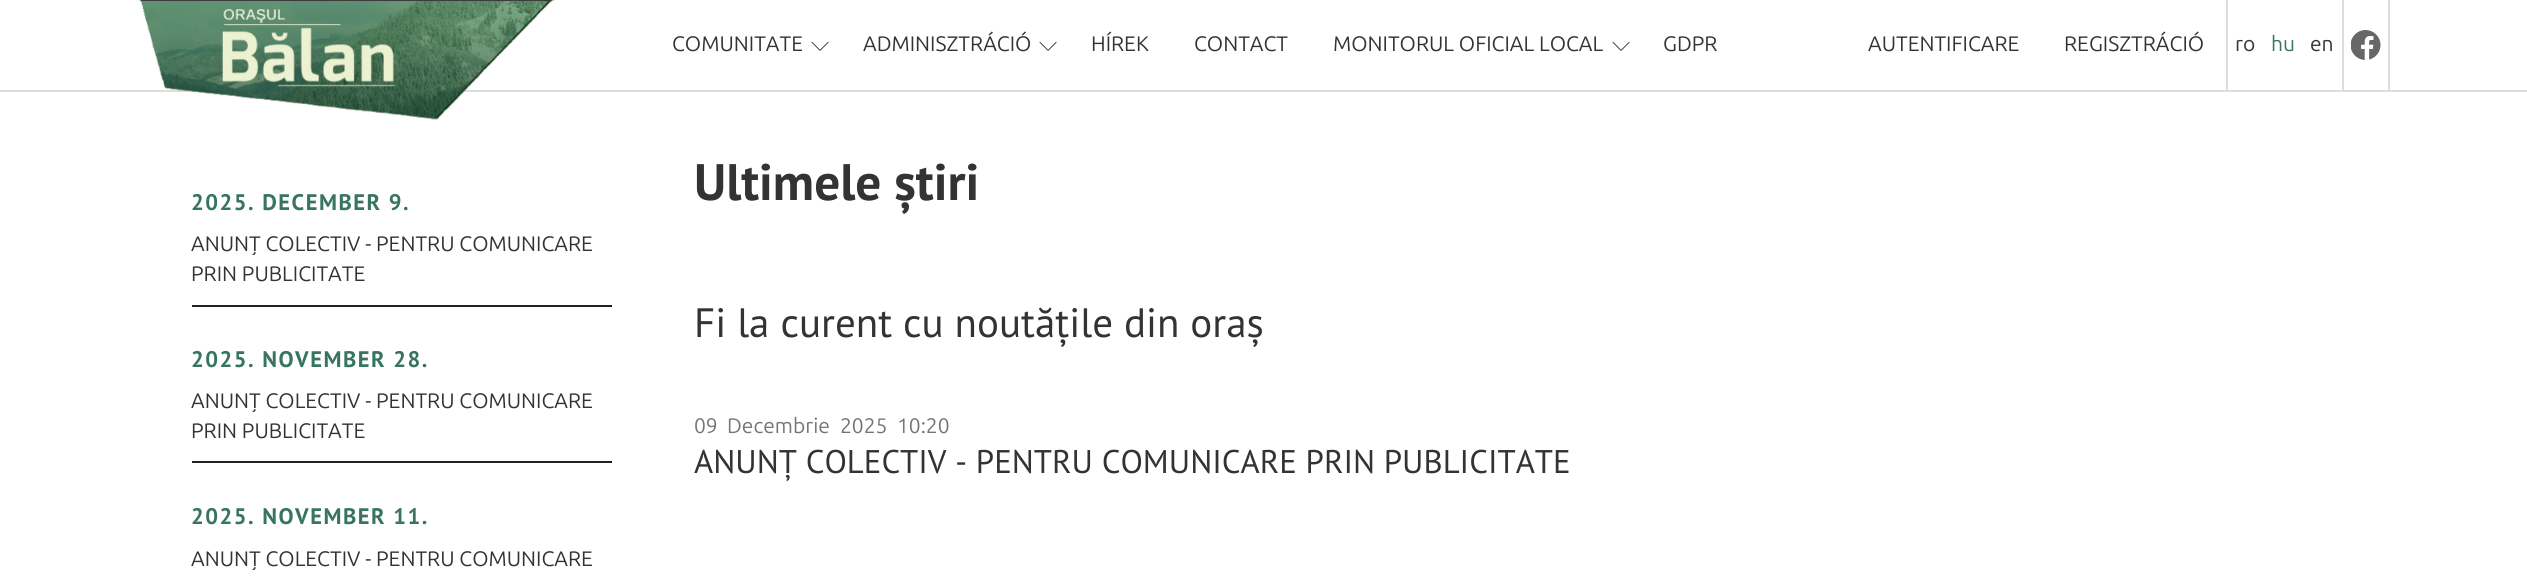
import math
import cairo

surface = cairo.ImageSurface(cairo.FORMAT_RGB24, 2527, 576)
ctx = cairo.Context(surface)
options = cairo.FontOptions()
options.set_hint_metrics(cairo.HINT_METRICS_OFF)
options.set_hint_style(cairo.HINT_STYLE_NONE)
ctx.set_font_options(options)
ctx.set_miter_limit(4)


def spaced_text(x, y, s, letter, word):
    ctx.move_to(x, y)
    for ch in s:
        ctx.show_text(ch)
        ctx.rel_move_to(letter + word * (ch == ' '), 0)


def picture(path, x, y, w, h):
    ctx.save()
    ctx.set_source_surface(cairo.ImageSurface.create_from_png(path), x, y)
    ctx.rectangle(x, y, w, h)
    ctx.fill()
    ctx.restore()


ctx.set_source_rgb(1, 1, 1)
ctx.paint()
ctx.set_source_rgb(0.867, 0.867, 0.867)
ctx.rectangle(0, 90, 2527, 2)
ctx.fill()
picture("img1.png", 139, 0, 416, 120)
ctx.select_font_face("Ubuntu")
ctx.set_font_size(21)
ctx.set_source_rgb(0.2, 0.2, 0.2)
ctx.move_to(672, 51)
ctx.show_text("COMUNITATE")
picture("img2.png", 811, 41, 18, 10)
ctx.move_to(863, 51)
ctx.show_text("ADMINISZTRÁCIÓ")
picture("img2.png", 1039, 41, 18, 10)
ctx.move_to(1091, 51)
ctx.show_text("HÍREK")
ctx.move_to(1194, 51)
ctx.show_text("CONTACT")
ctx.move_to(1333, 51)
ctx.show_text("MONITORUL OFICIAL LOCAL")
picture("img2.png", 1612, 41, 18, 10)
ctx.move_to(1663, 51)
ctx.show_text("GDPR")
ctx.move_to(1868, 51)
ctx.show_text("AUTENTIFICARE")
ctx.set_source_rgb(0.867, 0.867, 0.867)
ctx.rectangle(2226, 0, 2, 90)
ctx.fill()
ctx.set_source_rgb(0.2, 0.2, 0.2)
ctx.move_to(2064, 51)
ctx.show_text("REGISZTRÁCIÓ")
ctx.move_to(2235, 51)
ctx.show_text("ro")
ctx.set_source_rgb(0.216, 0.459, 0.38)
ctx.move_to(2271, 51)
ctx.show_text("hu")
ctx.set_source_rgb(0.2, 0.2, 0.2)
ctx.move_to(2310, 51)
ctx.show_text("en")
ctx.set_source_rgb(0.867, 0.867, 0.867)
ctx.rectangle(2388, 0, 2, 90)
ctx.fill()
ctx.rectangle(2342, 0, 2, 90)
ctx.fill()
picture("img3.png", 2351, 30, 30, 30)
ctx.select_font_face("PT Sans", cairo.FONT_SLANT_NORMAL, cairo.FONT_WEIGHT_BOLD)
ctx.set_font_size(22.5)
ctx.set_source_rgb(0.216, 0.459, 0.38)
spaced_text(191, 210, "2025. DECEMBER 9.", 1.5, 0)
ctx.select_font_face("Ubuntu")
ctx.set_font_size(21)
ctx.set_source_rgb(0.2, 0.2, 0.2)
ctx.move_to(191, 251)
ctx.show_text("ANUNȚ COLECTIV - PENTRU COMUNICARE")
ctx.move_to(191, 281)
ctx.show_text("PRIN PUBLICITATE")
ctx.set_source_rgb(0.133, 0.133, 0.133)
ctx.rectangle(192, 305, 420, 2)
ctx.fill()
ctx.select_font_face("PT Sans", cairo.FONT_SLANT_NORMAL, cairo.FONT_WEIGHT_BOLD)
ctx.set_font_size(22.5)
ctx.set_source_rgb(0.216, 0.459, 0.38)
spaced_text(191, 367, "2025. NOVEMBER 28.", 1.5, 0)
ctx.select_font_face("Ubuntu")
ctx.set_font_size(21)
ctx.set_source_rgb(0.2, 0.2, 0.2)
ctx.move_to(191, 408)
ctx.show_text("ANUNȚ COLECTIV - PENTRU COMUNICARE")
ctx.move_to(191, 438)
ctx.show_text("PRIN PUBLICITATE")
ctx.set_source_rgb(0.133, 0.133, 0.133)
ctx.rectangle(192, 461, 420, 2)
ctx.fill()
ctx.select_font_face("PT Sans", cairo.FONT_SLANT_NORMAL, cairo.FONT_WEIGHT_BOLD)
ctx.set_font_size(22.5)
ctx.set_source_rgb(0.216, 0.459, 0.38)
spaced_text(191, 524, "2025. NOVEMBER 11.", 1.5, 0)
ctx.select_font_face("Ubuntu")
ctx.set_font_size(21)
ctx.set_source_rgb(0.2, 0.2, 0.2)
ctx.move_to(191, 566)
ctx.show_text("ANUNȚ COLECTIV - PENTRU COMUNICARE")
ctx.select_font_face("PT Sans", cairo.FONT_SLANT_NORMAL, cairo.FONT_WEIGHT_BOLD)
ctx.set_font_size(51.25)
ctx.move_to(694, 200)
ctx.show_text("Ultimele știri")
ctx.select_font_face("PT Sans")
ctx.set_font_size(41)
ctx.move_to(694, 337)
ctx.show_text("Fi la curent cu noutățile din oraș")
ctx.select_font_face("Ubuntu")
ctx.set_font_size(21)
ctx.set_source_rgb(0.459, 0.459, 0.459)
ctx.move_to(694, 433)
ctx.show_text("09")
ctx.move_to(727, 433)
ctx.show_text("Decembrie")
ctx.move_to(840, 433)
ctx.show_text("2025")
ctx.move_to(897, 433)
ctx.show_text("10:20")
ctx.select_font_face("PT Sans")
ctx.set_font_size(32.8)
ctx.set_source_rgb(0.2, 0.2, 0.2)
ctx.move_to(694, 473)
ctx.show_text("ANUNȚ COLECTIV - PENTRU COMUNICARE PRIN PUBLICITATE")
surface.write_to_png("page.png")
